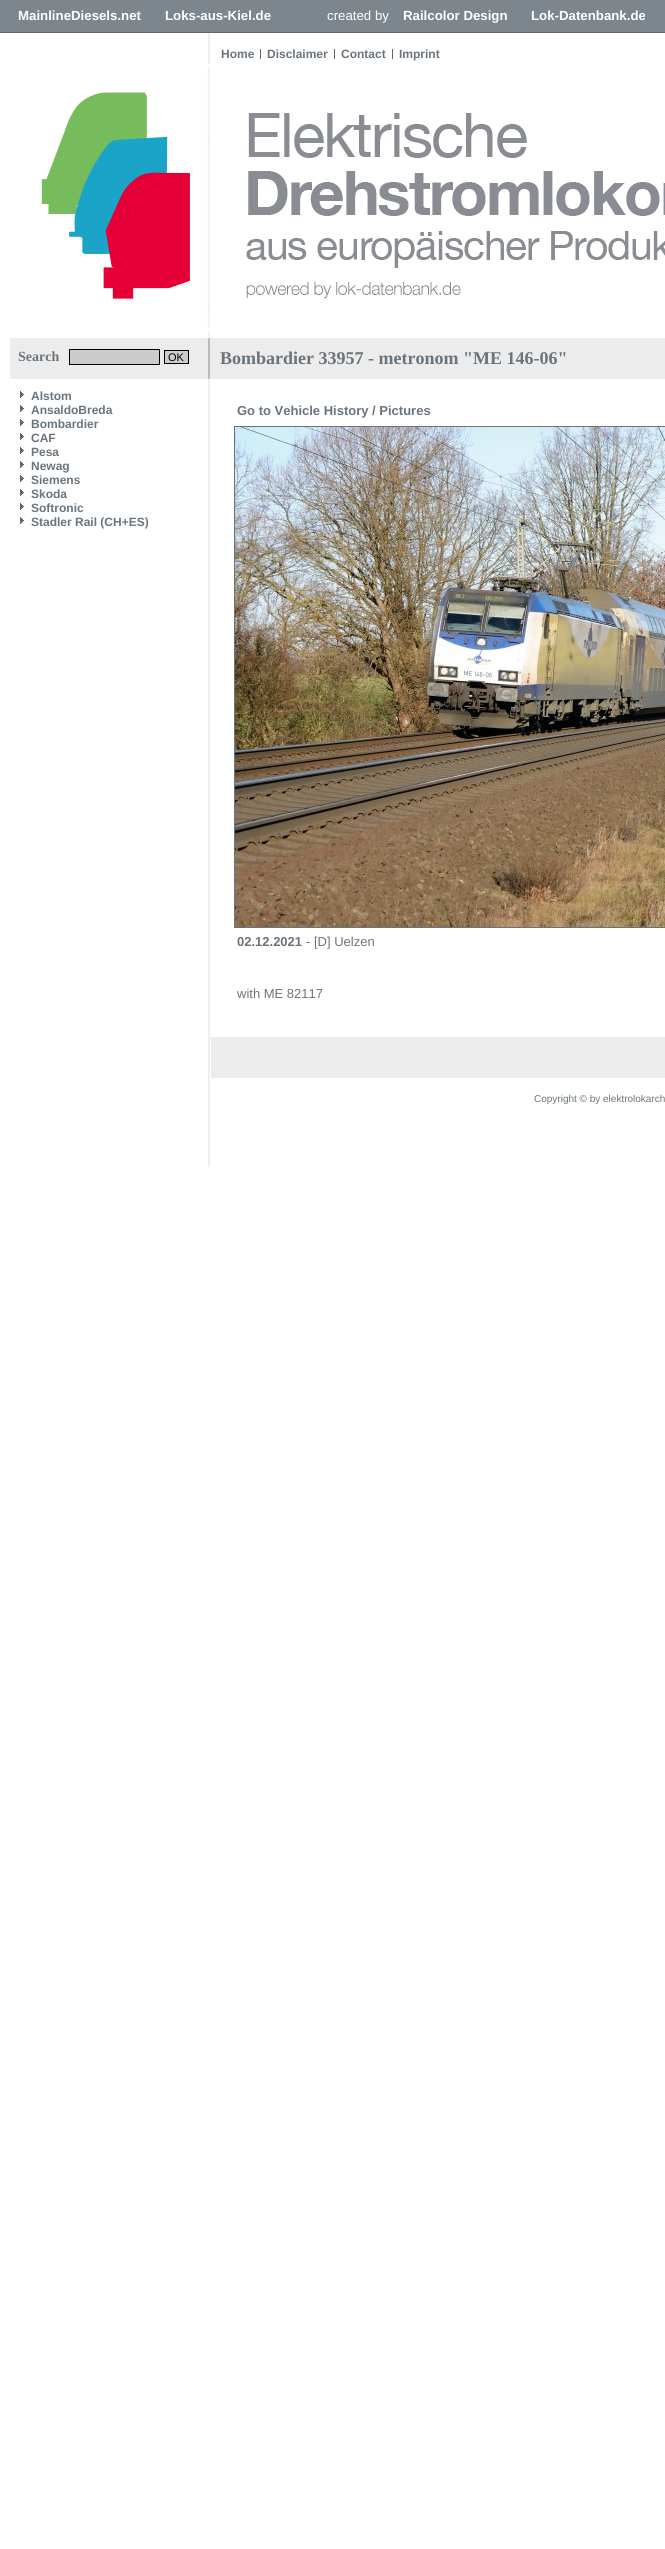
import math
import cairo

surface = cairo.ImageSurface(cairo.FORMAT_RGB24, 665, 2549)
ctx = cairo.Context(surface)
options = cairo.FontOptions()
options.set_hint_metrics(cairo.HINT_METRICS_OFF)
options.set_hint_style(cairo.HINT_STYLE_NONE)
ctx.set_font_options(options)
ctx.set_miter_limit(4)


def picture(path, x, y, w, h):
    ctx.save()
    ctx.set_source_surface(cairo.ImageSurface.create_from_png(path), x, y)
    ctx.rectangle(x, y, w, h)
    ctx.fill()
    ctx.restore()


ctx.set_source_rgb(1, 1, 1)
ctx.paint()
ctx.set_source_rgb(0.49, 0.525, 0.553)
ctx.rectangle(0, 0, 665, 32)
ctx.fill()
ctx.set_source_rgb(0.373, 0.408, 0.431)
ctx.rectangle(0, 32, 665, 1)
ctx.fill()
ctx.select_font_face("Liberation Sans", cairo.FONT_SLANT_NORMAL, cairo.FONT_WEIGHT_BOLD)
ctx.set_font_size(13.25)
ctx.set_source_rgb(1, 1, 1)
ctx.move_to(18, 20)
ctx.show_text("MainlineDiesels.net")
ctx.move_to(165, 20)
ctx.show_text("Loks-aus-Kiel.de")
ctx.select_font_face("Liberation Sans")
ctx.move_to(327, 20)
ctx.show_text("created by")
ctx.select_font_face("Liberation Sans", cairo.FONT_SLANT_NORMAL, cairo.FONT_WEIGHT_BOLD)
ctx.move_to(403, 20)
ctx.show_text("Railcolor Design")
ctx.move_to(531, 20)
ctx.show_text("Lok-Datenbank.de")
ctx.set_source_rgb(0.937, 0.937, 0.937)
ctx.rectangle(208, 33, 2, 1134)
ctx.fill()
ctx.set_font_size(12)
ctx.set_source_rgb(0.416, 0.455, 0.486)
ctx.move_to(221, 58)
ctx.show_text("Home")
ctx.move_to(267, 58)
ctx.show_text("Disclaimer")
ctx.set_source_rgb(0.4, 0.4, 0.4)
ctx.rectangle(260, 49, 1, 10)
ctx.fill()
ctx.set_source_rgb(0.416, 0.455, 0.486)
ctx.move_to(341, 58)
ctx.show_text("Contact")
ctx.set_source_rgb(0.4, 0.4, 0.4)
ctx.rectangle(334, 49, 1, 10)
ctx.fill()
ctx.set_source_rgb(0.416, 0.455, 0.486)
ctx.move_to(399, 58)
ctx.show_text("Imprint")
ctx.set_source_rgb(0.4, 0.4, 0.4)
ctx.rectangle(392, 49, 1, 10)
ctx.fill()
picture("img1.png", 41, 64, 624, 274)
ctx.set_source_rgb(0.922, 0.922, 0.922)
ctx.rectangle(10, 338, 198, 41)
ctx.fill()
ctx.set_source_rgb(0.733, 0.733, 0.733)
ctx.rectangle(208, 338, 2, 41)
ctx.fill()
ctx.select_font_face("Liberation Serif", cairo.FONT_SLANT_NORMAL, cairo.FONT_WEIGHT_BOLD)
ctx.set_font_size(14)
ctx.set_source_rgb(0.416, 0.455, 0.486)
ctx.move_to(18, 361)
ctx.show_text("Search")
ctx.set_source_rgb(0.8, 0.8, 0.8)
ctx.rectangle(69.5, 349.5, 90, 15)
ctx.fill_preserve()
ctx.set_source_rgb(0, 0, 0)
ctx.set_line_width(1)
ctx.stroke()
ctx.set_source_rgb(0.8, 0.8, 0.8)
ctx.rectangle(164.5, 350.5, 24, 13)
ctx.fill_preserve()
ctx.set_source_rgb(0, 0, 0)
ctx.stroke()
ctx.select_font_face("Liberation Sans")
ctx.set_font_size(11)
ctx.move_to(168, 361)
ctx.show_text("OK")
picture("img2.png", 20, 391, 4, 7)
ctx.select_font_face("Liberation Sans", cairo.FONT_SLANT_NORMAL, cairo.FONT_WEIGHT_BOLD)
ctx.set_font_size(12)
ctx.set_source_rgb(0.416, 0.455, 0.486)
ctx.move_to(31, 400)
ctx.show_text("Alstom")
picture("img2.png", 20, 405, 4, 7)
ctx.move_to(31, 414)
ctx.show_text("AnsaldoBreda")
picture("img2.png", 20, 419, 4, 7)
ctx.move_to(31, 428)
ctx.show_text("Bombardier")
picture("img2.png", 20, 433, 4, 7)
ctx.move_to(31, 442)
ctx.show_text("CAF")
picture("img2.png", 20, 447, 4, 7)
ctx.move_to(31, 456)
ctx.show_text("Pesa")
picture("img2.png", 20, 461, 4, 7)
ctx.move_to(31, 470)
ctx.show_text("Newag")
picture("img2.png", 20, 475, 4, 7)
ctx.move_to(31, 484)
ctx.show_text("Siemens")
picture("img2.png", 20, 489, 4, 7)
ctx.move_to(31, 498)
ctx.show_text("Skoda")
picture("img2.png", 20, 503, 4, 7)
ctx.move_to(31, 512)
ctx.show_text("Softronic")
picture("img2.png", 20, 517, 4, 7)
ctx.move_to(31, 526)
ctx.show_text("Stadler Rail (CH+ES)")
ctx.set_source_rgb(0.922, 0.922, 0.922)
ctx.rectangle(210, 338, 455, 41)
ctx.fill()
ctx.select_font_face("Liberation Serif", cairo.FONT_SLANT_NORMAL, cairo.FONT_WEIGHT_BOLD)
ctx.set_font_size(18)
ctx.set_source_rgb(0.416, 0.455, 0.486)
ctx.move_to(220, 364)
ctx.show_text("Bombardier 33957 - metronom \"ME 146-06\"")
ctx.select_font_face("Liberation Sans", cairo.FONT_SLANT_NORMAL, cairo.FONT_WEIGHT_BOLD)
ctx.set_font_size(13)
ctx.move_to(237, 415)
ctx.show_text("Go to Vehicle History / Pictures")
ctx.rectangle(234.5, 426.5, 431, 501)
ctx.stroke()
picture("img3.png", 235, 427, 430, 500)
ctx.move_to(237, 946)
ctx.show_text("02.12.2021")
ctx.select_font_face("Liberation Sans")
ctx.move_to(306, 946)
ctx.show_text("- [D] Uelzen")
ctx.move_to(237, 998)
ctx.show_text("with ME 82117")
ctx.set_source_rgb(0.922, 0.922, 0.922)
ctx.rectangle(211, 1037, 454, 41)
ctx.fill()
ctx.set_font_size(10)
ctx.set_source_rgb(0.416, 0.455, 0.486)
ctx.move_to(534, 1102)
ctx.show_text("Copyright © by elektrolokarch")
surface.write_to_png("page.png")
